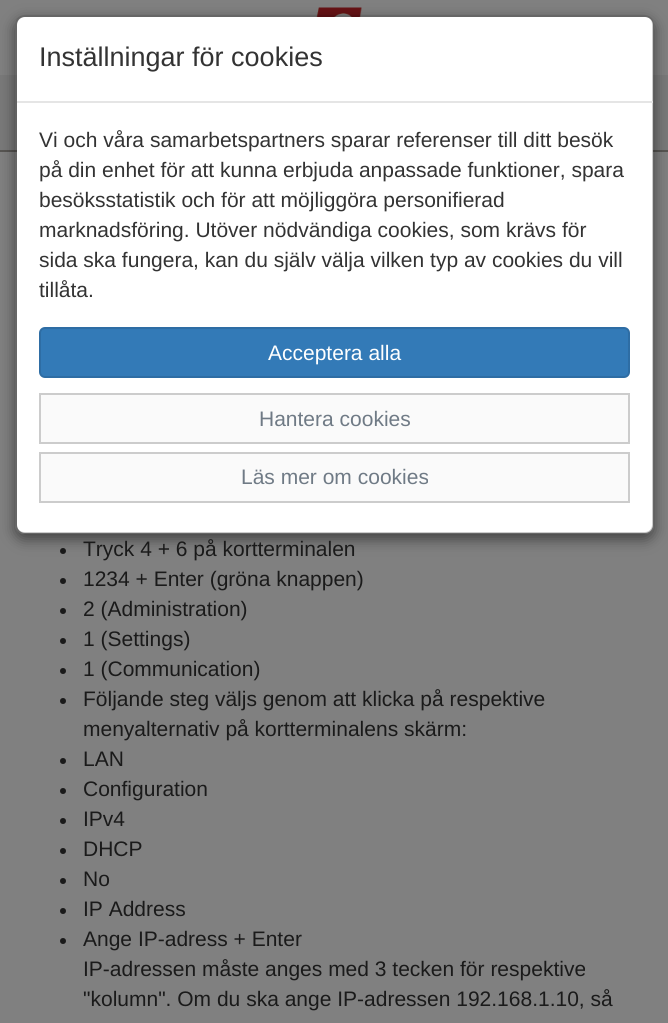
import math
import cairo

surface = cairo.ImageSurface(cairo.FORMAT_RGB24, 668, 1023)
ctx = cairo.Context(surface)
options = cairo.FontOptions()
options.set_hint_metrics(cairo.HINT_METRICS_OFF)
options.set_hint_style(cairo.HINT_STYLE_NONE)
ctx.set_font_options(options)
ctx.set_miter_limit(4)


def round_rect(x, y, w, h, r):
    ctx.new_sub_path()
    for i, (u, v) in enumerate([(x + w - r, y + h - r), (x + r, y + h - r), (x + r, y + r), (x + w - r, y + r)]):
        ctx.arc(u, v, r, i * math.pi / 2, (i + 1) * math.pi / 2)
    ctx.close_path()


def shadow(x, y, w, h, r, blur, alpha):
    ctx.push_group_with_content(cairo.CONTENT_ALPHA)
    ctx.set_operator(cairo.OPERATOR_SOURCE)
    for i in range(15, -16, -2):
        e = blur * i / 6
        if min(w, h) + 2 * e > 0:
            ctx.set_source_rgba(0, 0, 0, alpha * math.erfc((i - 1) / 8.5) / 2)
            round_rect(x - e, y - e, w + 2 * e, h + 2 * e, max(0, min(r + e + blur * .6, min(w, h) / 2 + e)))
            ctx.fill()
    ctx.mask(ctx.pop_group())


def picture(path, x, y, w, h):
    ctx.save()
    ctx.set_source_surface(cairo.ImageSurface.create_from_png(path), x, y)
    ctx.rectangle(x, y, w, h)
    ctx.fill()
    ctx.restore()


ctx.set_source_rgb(0.502, 0.502, 0.502)
ctx.paint()
ctx.set_source_rgb(0.475, 0.475, 0.475)
ctx.rectangle(0, 75, 668, 75)
ctx.fill()
ctx.set_source_rgb(0.341, 0.333, 0.322)
ctx.rectangle(0, 150, 668, 2)
ctx.fill()
picture("img1.png", 316, 7, 46, 10)
ctx.set_source_rgb(0.102, 0.102, 0.102)
ctx.arc(63, 551, 3, 0, 2 * math.pi)
ctx.fill()
ctx.save()
ctx.set_fill_rule(cairo.FILL_RULE_EVEN_ODD)
ctx.new_path()
ctx.move_to(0, 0)
ctx.line_to(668, 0)
ctx.line_to(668, 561)
ctx.line_to(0, 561)
ctx.close_path()
ctx.move_to(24, 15)
ctx.line_to(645, 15)
ctx.curve_to(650, 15, 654, 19, 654, 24)
ctx.line_to(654, 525)
ctx.curve_to(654, 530, 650, 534, 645, 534)
ctx.line_to(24, 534)
ctx.curve_to(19, 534, 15, 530, 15, 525)
ctx.line_to(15, 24)
ctx.curve_to(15, 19, 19, 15, 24, 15)
ctx.close_path()
ctx.clip()
ctx.set_source_rgb(0, 0, 0)
shadow(15, 20, 639, 519, 9, 7, 0.5)
ctx.restore()
ctx.set_source_rgb(1, 1, 1)
round_rect(17, 17, 636, 516, 8)
ctx.fill()
round_rect(16, 16, 637, 517, 8)
ctx.set_source_rgba(0, 0, 0, 0.2)
ctx.stroke()
ctx.set_source_rgb(0.898, 0.898, 0.898)
ctx.rectangle(17, 101, 636, 2)
ctx.fill()
ctx.select_font_face("Liberation Sans")
ctx.set_font_size(27)
ctx.set_source_rgb(0.2, 0.2, 0.2)
ctx.move_to(39, 66)
ctx.show_text("Inställningar för cookies")
ctx.set_font_size(21)
ctx.move_to(39, 147)
ctx.show_text("Vi och våra samarbetspartners sparar referenser till ditt besök")
ctx.move_to(39, 177)
ctx.show_text("på din enhet för att kunna erbjuda anpassade funktioner, spara")
ctx.move_to(39, 207)
ctx.show_text("besöksstatistik och för att möjliggöra personifierad")
ctx.move_to(39, 237)
ctx.show_text("marknadsföring. Utöver nödvändiga cookies, som krävs för")
ctx.move_to(39, 267)
ctx.show_text("sida ska fungera, kan du själv välja vilken typ av cookies du vill")
ctx.move_to(39, 297)
ctx.show_text("tillåta.")
ctx.set_source_rgb(0.2, 0.478, 0.718)
round_rect(40, 328, 589, 49, 5)
ctx.fill_preserve()
ctx.set_source_rgb(0.18, 0.427, 0.643)
ctx.stroke()
ctx.set_source_rgb(1, 1, 1)
ctx.move_to(268, 360)
ctx.show_text("Acceptera alla")
ctx.set_source_rgb(0.98, 0.98, 0.98)
ctx.rectangle(40, 394, 589, 49)
ctx.fill_preserve()
ctx.set_source_rgb(0.8, 0.8, 0.8)
ctx.stroke()
ctx.set_source_rgb(0.435, 0.478, 0.522)
ctx.move_to(259, 426)
ctx.show_text("Hantera cookies")
ctx.set_source_rgb(0.98, 0.98, 0.98)
ctx.rectangle(40, 453, 589, 49)
ctx.fill_preserve()
ctx.set_source_rgb(0.8, 0.8, 0.8)
ctx.stroke()
ctx.set_source_rgb(0.435, 0.478, 0.522)
ctx.move_to(241, 484)
ctx.show_text("Läs mer om cookies")
ctx.set_source_rgb(0.102, 0.102, 0.102)
ctx.move_to(83, 556)
ctx.show_text("Tryck 4 + 6 på kortterminalen")
ctx.new_path()
ctx.arc(63, 581, 3, 0, 2 * math.pi)
ctx.fill()
ctx.move_to(83, 586)
ctx.show_text("1234 + Enter (gröna knappen)")
ctx.new_path()
ctx.arc(63, 611, 3, 0, 2 * math.pi)
ctx.fill()
ctx.move_to(83, 616)
ctx.show_text("2 (Administration)")
ctx.new_path()
ctx.arc(63, 641, 3, 0, 2 * math.pi)
ctx.fill()
ctx.move_to(83, 646)
ctx.show_text("1 (Settings)")
ctx.new_path()
ctx.arc(63, 671, 3, 0, 2 * math.pi)
ctx.fill()
ctx.move_to(83, 676)
ctx.show_text("1 (Communication)")
ctx.new_path()
ctx.arc(63, 701, 3, 0, 2 * math.pi)
ctx.fill()
ctx.move_to(83, 706)
ctx.show_text("Följande steg väljs genom att klicka på respektive")
ctx.move_to(83, 736)
ctx.show_text("menyalternativ på kortterminalens skärm:")
ctx.new_path()
ctx.arc(63, 761, 3, 0, 2 * math.pi)
ctx.fill()
ctx.move_to(83, 766)
ctx.show_text("LAN")
ctx.new_path()
ctx.arc(63, 791, 3, 0, 2 * math.pi)
ctx.fill()
ctx.move_to(83, 796)
ctx.show_text("Configuration")
ctx.new_path()
ctx.arc(63, 821, 3, 0, 2 * math.pi)
ctx.fill()
ctx.move_to(83, 826)
ctx.show_text("IPv4")
ctx.new_path()
ctx.arc(63, 851, 3, 0, 2 * math.pi)
ctx.fill()
ctx.move_to(83, 856)
ctx.show_text("DHCP")
ctx.new_path()
ctx.arc(63, 881, 3, 0, 2 * math.pi)
ctx.fill()
ctx.move_to(83, 886)
ctx.show_text("No")
ctx.new_path()
ctx.arc(63, 911, 3, 0, 2 * math.pi)
ctx.fill()
ctx.move_to(83, 916)
ctx.show_text("IP Address")
ctx.new_path()
ctx.arc(63, 941, 3, 0, 2 * math.pi)
ctx.fill()
ctx.move_to(83, 946)
ctx.show_text("Ange IP-adress + Enter")
ctx.move_to(83, 976)
ctx.show_text("IP-adressen måste anges med 3 tecken för respektive")
ctx.move_to(83, 1006)
ctx.show_text("\"kolumn\". Om du ska ange IP-adressen 192.168.1.10, så")
surface.write_to_png("page.png")
